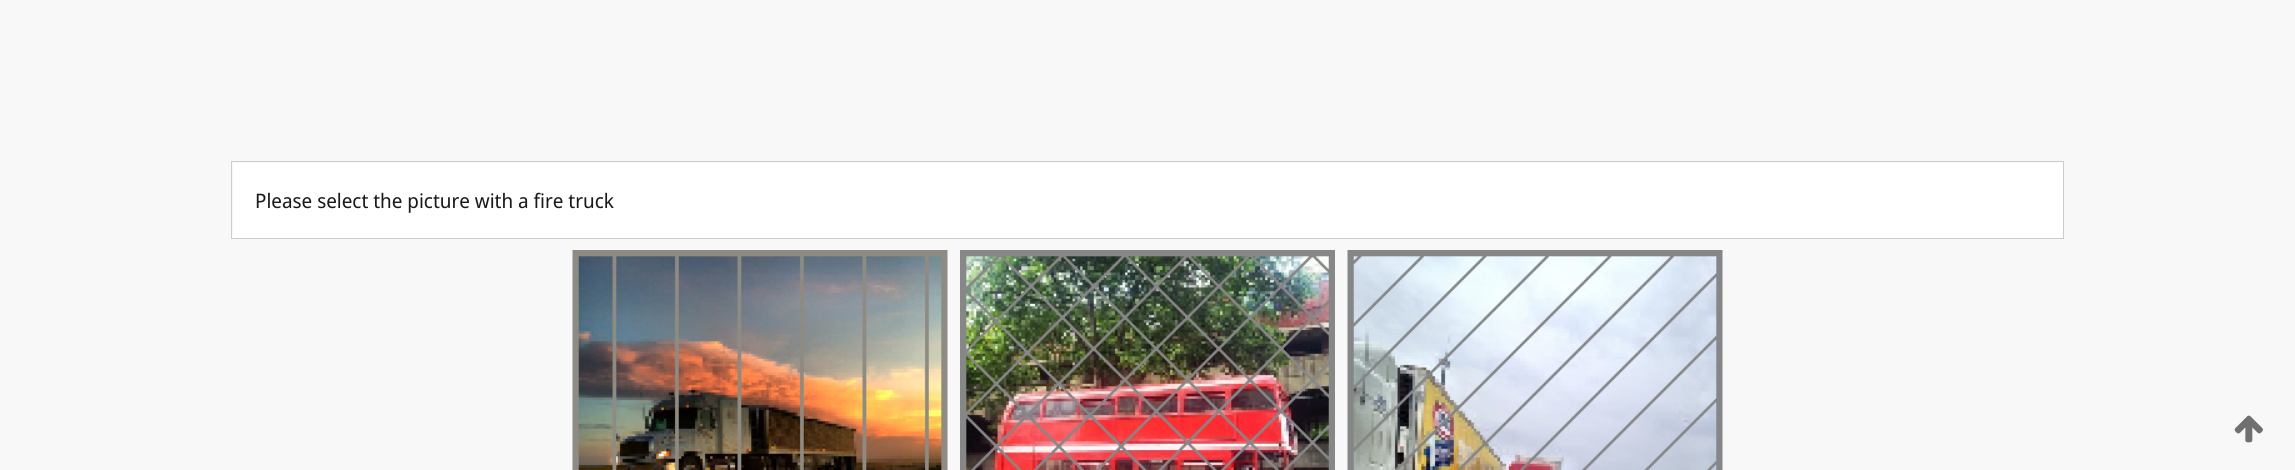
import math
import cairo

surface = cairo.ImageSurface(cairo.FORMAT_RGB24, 2295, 470)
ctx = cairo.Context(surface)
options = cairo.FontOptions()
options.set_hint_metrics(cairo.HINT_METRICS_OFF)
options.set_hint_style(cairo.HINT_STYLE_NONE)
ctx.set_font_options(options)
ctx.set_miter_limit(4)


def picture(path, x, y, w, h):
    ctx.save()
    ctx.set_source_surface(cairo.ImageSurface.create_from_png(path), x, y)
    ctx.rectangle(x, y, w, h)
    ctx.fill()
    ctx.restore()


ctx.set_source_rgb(0.969, 0.969, 0.969)
ctx.paint()
ctx.set_source_rgb(1, 1, 1)
ctx.rectangle(233, 163, 1830, 75)
ctx.fill()
ctx.rectangle(231.5, 161.5, 1832, 77)
ctx.set_source_rgb(0.8, 0.8, 0.8)
ctx.set_line_width(1)
ctx.stroke()
ctx.select_font_face("Noto Sans Display")
ctx.set_font_size(20)
ctx.set_source_rgb(0.102, 0.102, 0.102)
ctx.move_to(255, 208)
ctx.show_text("Please select the picture with a fire truck")
picture("img1.png", 572, 250, 376, 220)
picture("img2.png", 960, 250, 375, 220)
picture("img3.png", 1347, 250, 376, 220)
picture("img4.png", 2234, 415, 29, 28)
surface.write_to_png("page.png")
